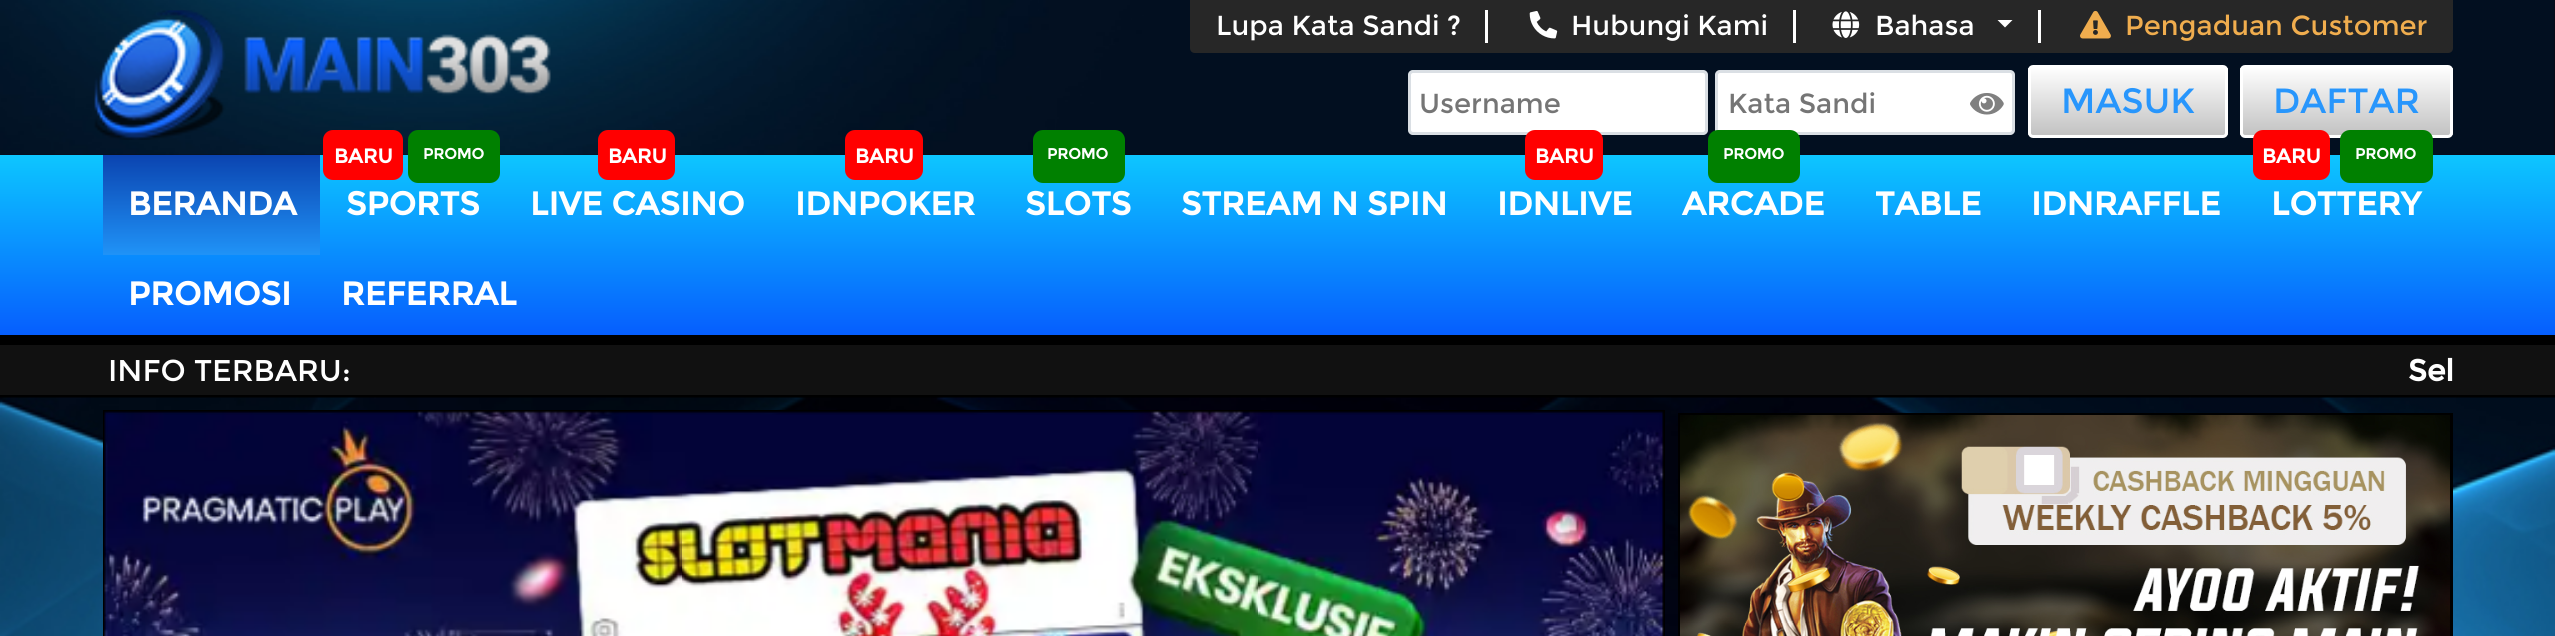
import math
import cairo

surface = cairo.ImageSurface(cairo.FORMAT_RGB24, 2555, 636)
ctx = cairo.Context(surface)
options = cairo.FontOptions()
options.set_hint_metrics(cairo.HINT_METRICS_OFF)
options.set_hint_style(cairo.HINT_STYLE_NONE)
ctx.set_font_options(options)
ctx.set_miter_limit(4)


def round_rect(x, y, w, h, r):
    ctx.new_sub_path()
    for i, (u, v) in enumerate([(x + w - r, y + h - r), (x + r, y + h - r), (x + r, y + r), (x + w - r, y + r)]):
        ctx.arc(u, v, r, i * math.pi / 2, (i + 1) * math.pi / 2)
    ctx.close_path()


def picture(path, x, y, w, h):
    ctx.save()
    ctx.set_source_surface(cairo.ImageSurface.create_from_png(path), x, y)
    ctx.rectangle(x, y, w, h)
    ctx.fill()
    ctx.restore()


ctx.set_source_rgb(0, 0, 0)
ctx.paint()
ctx.set_source_rgb(0.071, 0.02, 0.059)
ctx.rectangle(0, 0, 2555, 155)
ctx.fill()
picture("img1.png", 0, 0, 2555, 155)
picture("img2.png", 94, 10, 457, 130)
ctx.set_source_rgb(0.153, 0.153, 0.153)
ctx.new_path()
ctx.move_to(1190, 0)
ctx.line_to(2453, 0)
ctx.line_to(2453, 48)
ctx.curve_to(2453, 51, 2451, 53, 2448, 53)
ctx.line_to(1195, 53)
ctx.curve_to(1192, 53, 1190, 51, 1190, 48)
ctx.close_path()
ctx.fill()
ctx.set_source_rgb(1, 1, 1)
ctx.rectangle(1485, 10, 3, 33)
ctx.fill()
ctx.select_font_face("Montserrat")
ctx.set_font_size(27.5)
ctx.move_to(1216, 35)
ctx.show_text("Lupa Kata Sandi ?")
ctx.rectangle(1793, 10, 3, 33)
ctx.fill()
picture("img3.png", 1529, 11, 29, 28)
ctx.move_to(1571, 35)
ctx.show_text("Hubungi Kami")
ctx.rectangle(2038, 10, 3, 33)
ctx.fill()
picture("img4.png", 1832, 11, 28, 27)
ctx.move_to(1875, 35)
ctx.show_text("Bahasa")
ctx.new_path()
ctx.move_to(1997.5, 20)
ctx.line_to(2012.5, 20)
ctx.line_to(2005, 27.5)
ctx.close_path()
ctx.fill()
picture("img5.png", 2080, 10, 31, 29)
ctx.set_source_rgb(0.941, 0.678, 0.306)
ctx.move_to(2125, 35)
ctx.show_text("Pengaduan Customer")
ctx.set_source_rgb(1, 1, 1)
round_rect(1408, 70, 300, 65, 5)
ctx.fill()
round_rect(1409.5, 71.5, 297, 62, 3.5)
ctx.set_source_rgba(0.514, 0.584, 0.647, 0.3)
ctx.set_line_width(3)
ctx.stroke()
ctx.set_source_rgb(0.459, 0.459, 0.459)
ctx.move_to(1419, 113)
ctx.show_text("Username")
ctx.set_source_rgb(1, 1, 1)
round_rect(1715, 70, 300, 65, 5)
ctx.fill()
round_rect(1716.5, 71.5, 297, 62, 3.5)
ctx.set_source_rgba(0.514, 0.584, 0.647, 0.3)
ctx.stroke()
ctx.set_source_rgb(0.459, 0.459, 0.459)
ctx.move_to(1728, 113)
ctx.show_text("Kata Sandi")
picture("img6.png", 1970, 93, 34, 22)
ctx.save()
round_rect(2028, 65, 200, 73, 5)
ctx.clip()
gradient = cairo.LinearGradient(2128, 67, 2128, 135)
gradient.add_color_stop_rgba(0, 1, 1, 1, 1)
gradient.add_color_stop_rgba(1, 0.761, 0.761, 0.761, 1)
ctx.set_source(gradient)
ctx.rectangle(2028, 68, 200, 67)
ctx.fill()
ctx.restore()
round_rect(2029.5, 66.5, 197, 70, 3.5)
ctx.set_source_rgb(1, 1, 1)
ctx.stroke()
ctx.set_font_size(35)
ctx.set_source_rgb(0.157, 0.588, 0.988)
ctx.move_to(2061, 113)
ctx.show_text("MASUK")
ctx.save()
round_rect(2240, 65, 213, 73, 5)
ctx.clip()
gradient = cairo.LinearGradient(2346, 67, 2346, 135)
gradient.add_color_stop_rgba(0, 1, 1, 1, 1)
gradient.add_color_stop_rgba(1, 0.761, 0.761, 0.761, 1)
ctx.set_source(gradient)
ctx.rectangle(2240, 68, 213, 67)
ctx.fill()
ctx.restore()
round_rect(2241.5, 66.5, 210, 70, 3.5)
ctx.set_source_rgb(1, 1, 1)
ctx.stroke()
ctx.set_source_rgb(0.157, 0.588, 0.988)
ctx.move_to(2273, 113)
ctx.show_text("DAFTAR")
gradient = cairo.LinearGradient(1278, 155, 1278, 335)
gradient.add_color_stop_rgba(0, 0.051, 0.776, 1, 1)
gradient.add_color_stop_rgba(1, 0.024, 0.369, 0.996, 1)
ctx.set_source(gradient)
ctx.rectangle(0, 155, 2555, 180)
ctx.fill()
gradient = cairo.LinearGradient(211, 155, 211, 255)
gradient.add_color_stop_rgba(0, 0.043, 0.267, 0.69, 1)
gradient.add_color_stop_rgba(1, 0.125, 0.576, 0.969, 1)
ctx.set_source(gradient)
ctx.rectangle(103, 155, 217, 100)
ctx.fill()
ctx.select_font_face("Montserrat", cairo.FONT_SLANT_NORMAL, cairo.FONT_WEIGHT_BOLD)
ctx.set_font_size(32.5)
ctx.set_source_rgb(1, 1, 1)
ctx.move_to(128, 215)
ctx.show_text("BERANDA")
ctx.set_source_rgb(1, 0, 0)
round_rect(323, 130, 80, 50, 10)
ctx.fill()
ctx.set_font_size(20)
ctx.set_source_rgb(1, 1, 1)
ctx.move_to(334, 163)
ctx.show_text("BARU")
ctx.set_source_rgb(0, 0.502, 0)
round_rect(408, 130, 92, 53, 10)
ctx.fill()
ctx.set_font_size(15)
ctx.set_source_rgb(1, 1, 1)
ctx.move_to(423, 159)
ctx.show_text("PROMO")
ctx.set_font_size(32.5)
ctx.move_to(346, 215)
ctx.show_text("SPORTS")
ctx.set_source_rgb(1, 0, 0)
round_rect(598, 130, 77, 50, 10)
ctx.fill()
ctx.set_font_size(20)
ctx.set_source_rgb(1, 1, 1)
ctx.move_to(608, 163)
ctx.show_text("BARU")
ctx.set_font_size(32.5)
ctx.move_to(530, 215)
ctx.show_text("LIVE CASINO")
ctx.set_source_rgb(1, 0, 0)
round_rect(845, 130, 78, 50, 10)
ctx.fill()
ctx.set_font_size(20)
ctx.set_source_rgb(1, 1, 1)
ctx.move_to(855, 163)
ctx.show_text("BARU")
ctx.set_font_size(32.5)
ctx.move_to(795, 215)
ctx.show_text("IDNPOKER")
ctx.set_source_rgb(0, 0.502, 0)
round_rect(1033, 130, 92, 53, 10)
ctx.fill()
ctx.set_font_size(15)
ctx.set_source_rgb(1, 1, 1)
ctx.move_to(1047, 159)
ctx.show_text("PROMO")
ctx.set_font_size(32.5)
ctx.move_to(1025, 215)
ctx.show_text("SLOTS")
ctx.move_to(1181, 215)
ctx.show_text("STREAM N SPIN")
ctx.set_source_rgb(1, 0, 0)
round_rect(1525, 130, 78, 50, 10)
ctx.fill()
ctx.set_font_size(20)
ctx.set_source_rgb(1, 1, 1)
ctx.move_to(1535, 163)
ctx.show_text("BARU")
ctx.set_font_size(32.5)
ctx.move_to(1497, 215)
ctx.show_text("IDNLIVE")
ctx.set_source_rgb(0, 0.502, 0)
round_rect(1708, 130, 92, 53, 10)
ctx.fill()
ctx.set_font_size(15)
ctx.set_source_rgb(1, 1, 1)
ctx.move_to(1723, 159)
ctx.show_text("PROMO")
ctx.set_font_size(32.5)
ctx.move_to(1682, 215)
ctx.show_text("ARCADE")
ctx.move_to(1875, 215)
ctx.show_text("TABLE")
ctx.move_to(2031, 215)
ctx.show_text("IDNRAFFLE")
ctx.set_source_rgb(1, 0, 0)
round_rect(2253, 130, 77, 50, 10)
ctx.fill()
ctx.set_font_size(20)
ctx.set_source_rgb(1, 1, 1)
ctx.move_to(2262, 163)
ctx.show_text("BARU")
ctx.set_source_rgb(0, 0.502, 0)
round_rect(2340, 130, 93, 53, 10)
ctx.fill()
ctx.set_font_size(15)
ctx.set_source_rgb(1, 1, 1)
ctx.move_to(2355, 159)
ctx.show_text("PROMO")
ctx.set_font_size(32.5)
ctx.move_to(2271, 215)
ctx.show_text("LOTTERY")
ctx.move_to(128, 305)
ctx.show_text("PROMOSI")
ctx.move_to(341, 305)
ctx.show_text("REFERRAL")
ctx.set_source_rgb(0.067, 0.067, 0.067)
ctx.rectangle(0, 345, 2555, 50)
ctx.fill()
ctx.select_font_face("Montserrat")
ctx.set_font_size(30)
ctx.set_source_rgb(1, 1, 1)
ctx.move_to(108, 381)
ctx.show_text("INFO TERBARU:")
ctx.select_font_face("Montserrat", cairo.FONT_SLANT_NORMAL, cairo.FONT_WEIGHT_BOLD)
ctx.move_to(2408, 381)
ctx.show_text("Sel")
picture("img7.png", 0, 397, 2555, 239)
ctx.rectangle(104.5, 411.5, 1559, 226)
ctx.set_source_rgb(0, 0, 0)
ctx.stroke()
picture("img8.png", 104, 411, 1560, 225)
ctx.rectangle(1679.5, 414.5, 772, 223)
ctx.stroke()
picture("img9.png", 1680, 415, 770, 221)
surface.write_to_png("page.png")
